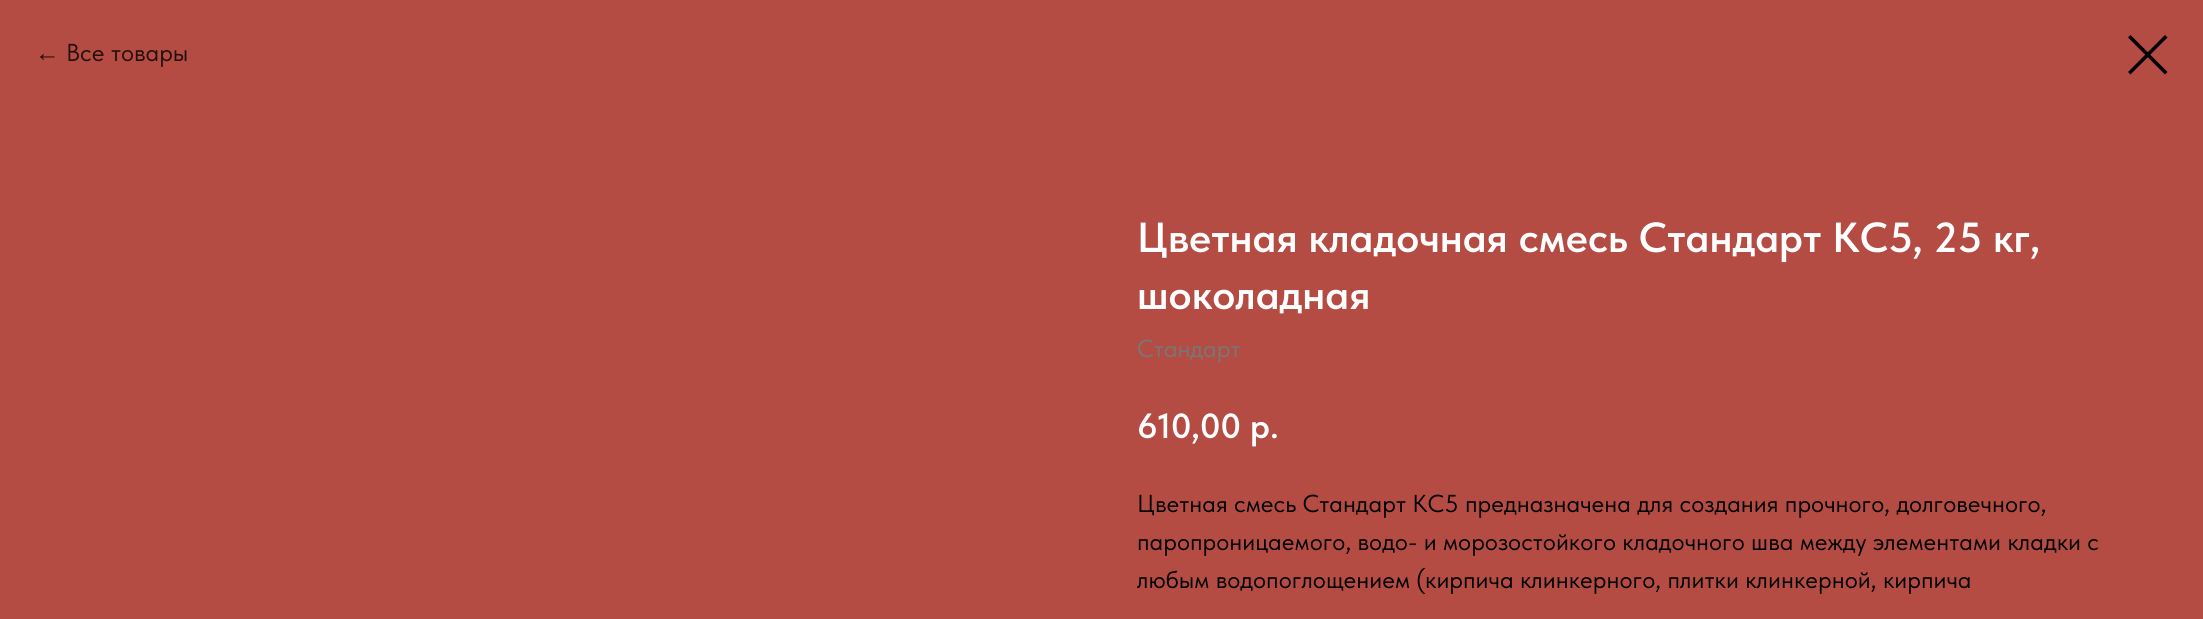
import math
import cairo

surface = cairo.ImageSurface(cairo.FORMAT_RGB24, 2203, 619)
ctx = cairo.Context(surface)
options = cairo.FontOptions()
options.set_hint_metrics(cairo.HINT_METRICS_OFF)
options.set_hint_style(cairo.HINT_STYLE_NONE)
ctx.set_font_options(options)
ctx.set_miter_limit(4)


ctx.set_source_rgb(0.706, 0.298, 0.263)
ctx.paint()
ctx.select_font_face("Liberation Sans")
ctx.set_font_size(24.5)
ctx.set_source_rgb(0.141, 0.059, 0.051)
ctx.move_to(35, 61)
ctx.show_text("←")
ctx.select_font_face("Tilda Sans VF")
ctx.move_to(66, 61)
ctx.show_text("Все товары")
ctx.set_source_rgb(0, 0, 0)
ctx.set_fill_rule(cairo.FILL_RULE_EVEN_ODD)
ctx.new_path()
ctx.move_to(2128, 37.5)
ctx.line_to(2130.5, 35)
ctx.line_to(2167.5, 72)
ctx.line_to(2165, 74.5)
ctx.close_path()
ctx.fill()
ctx.new_path()
ctx.move_to(2165, 35)
ctx.line_to(2167.5, 37.5)
ctx.line_to(2130.5, 74.5)
ctx.line_to(2128, 72)
ctx.close_path()
ctx.fill()
ctx.select_font_face("Tilda Sans VF SemiBold")
ctx.set_font_size(42)
ctx.set_source_rgb(1, 1, 1)
ctx.move_to(1137, 252)
ctx.show_text("Цветная кладочная смесь Стандарт КС5, 25 кг,")
ctx.move_to(1137, 309)
ctx.show_text("шоколадная")
ctx.select_font_face("Tilda Sans VF")
ctx.set_font_size(24.5)
ctx.set_source_rgb(0.467, 0.467, 0.467)
ctx.move_to(1137, 357)
ctx.show_text("Стандарт")
ctx.select_font_face("Tilda Sans VF SemiBold")
ctx.set_font_size(35)
ctx.set_source_rgb(1, 1, 1)
ctx.move_to(1137, 438)
ctx.show_text("610,00")
ctx.move_to(1250, 438)
ctx.show_text("р.")
ctx.select_font_face("Tilda Sans VF")
ctx.set_font_size(24.5)
ctx.set_source_rgb(0, 0, 0)
ctx.move_to(1137, 512)
ctx.show_text("Цветная смесь Стандарт КС5 предназначена для создания прочного, долговечного,")
ctx.move_to(1137, 550)
ctx.show_text("паропроницаемого, водо- и морозостойкого кладочного шва между элементами кладки с")
ctx.move_to(1137, 588)
ctx.show_text("любым водопоглощением (кирпича клинкерного, плитки клинкерной, кирпича")
surface.write_to_png("page.png")
